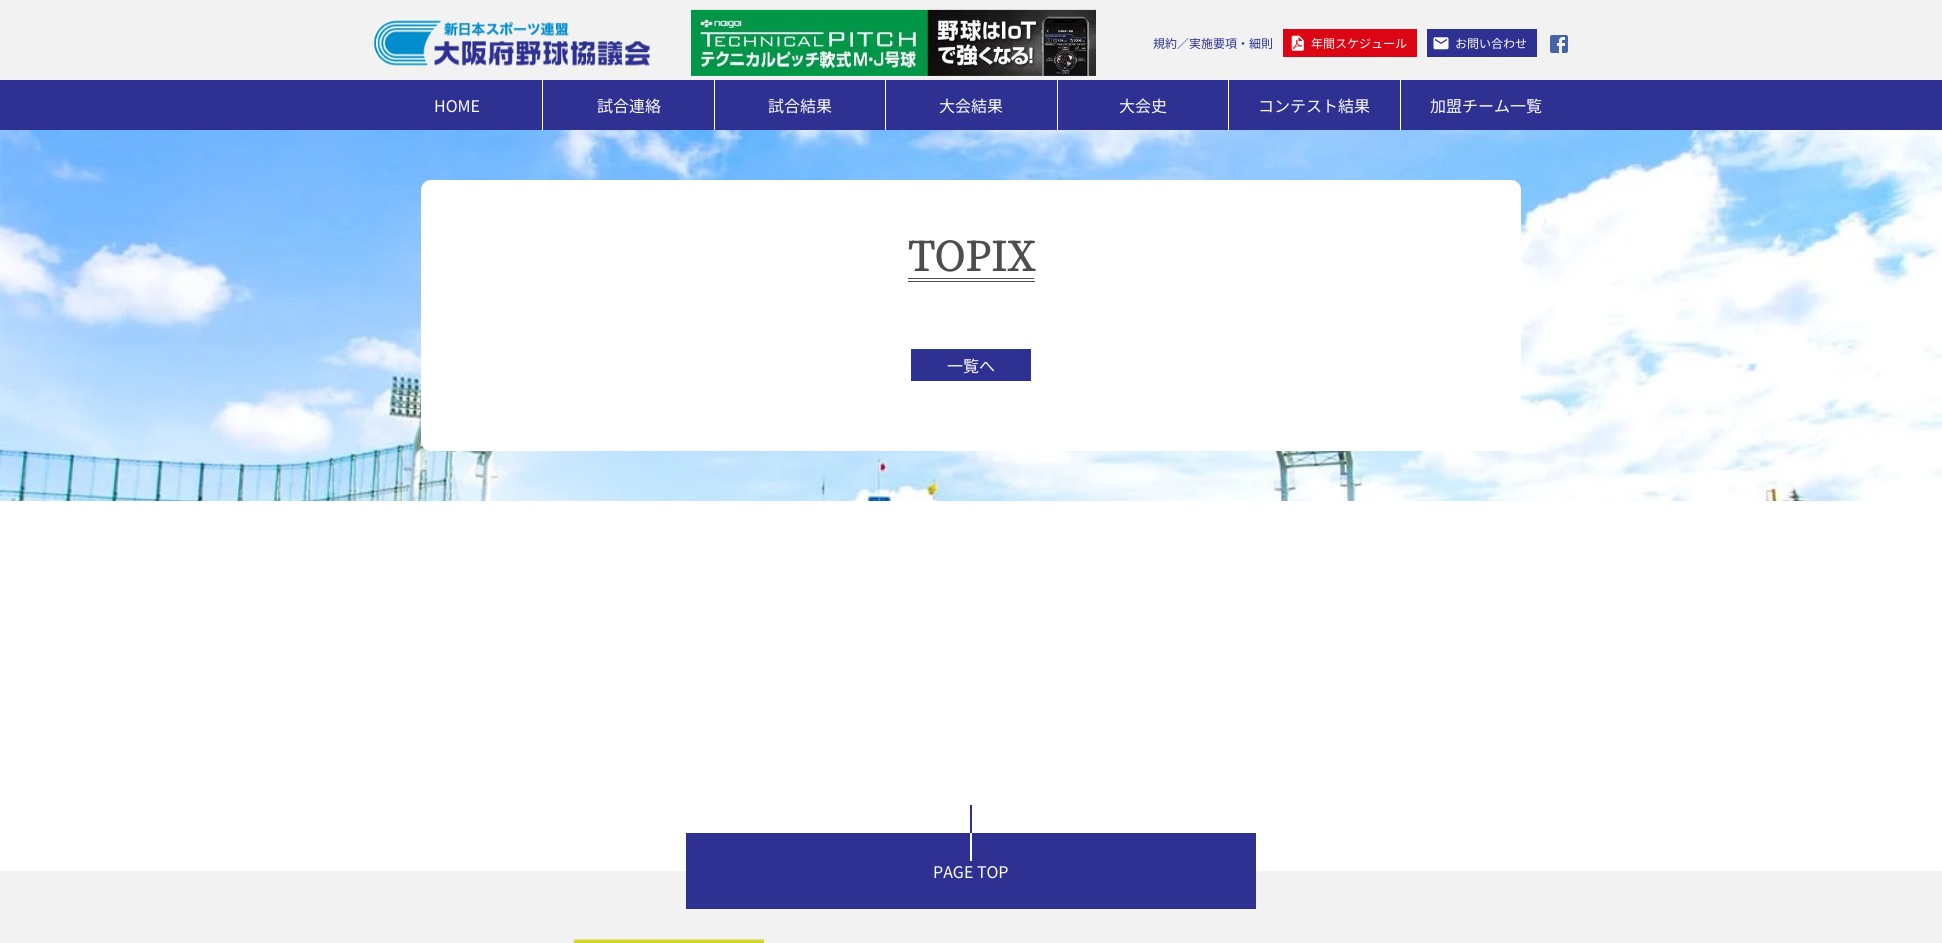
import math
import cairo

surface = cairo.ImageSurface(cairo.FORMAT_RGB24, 1942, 943)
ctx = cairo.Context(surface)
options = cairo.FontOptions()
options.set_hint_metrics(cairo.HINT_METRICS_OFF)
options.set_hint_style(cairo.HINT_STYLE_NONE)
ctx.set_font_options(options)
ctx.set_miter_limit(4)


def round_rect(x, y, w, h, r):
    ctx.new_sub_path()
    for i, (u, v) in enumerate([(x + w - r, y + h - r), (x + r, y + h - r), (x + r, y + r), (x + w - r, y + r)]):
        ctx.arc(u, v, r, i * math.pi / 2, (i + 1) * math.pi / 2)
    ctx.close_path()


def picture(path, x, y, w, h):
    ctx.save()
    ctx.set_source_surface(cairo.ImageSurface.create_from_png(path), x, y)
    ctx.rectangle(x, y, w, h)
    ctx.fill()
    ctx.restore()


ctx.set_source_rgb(1, 1, 1)
ctx.paint()
ctx.set_source_rgb(0.949, 0.949, 0.949)
ctx.rectangle(0, 0, 1942, 80)
ctx.fill()
picture("img1.png", 372, 19, 279, 47)
picture("img2.png", 691, 9, 405, 67)
ctx.select_font_face("Noto Sans JP Thin")
ctx.set_font_size(12)
ctx.set_source_rgb(0.18, 0.192, 0.573)
ctx.move_to(1153, 48)
ctx.show_text("規約／実施要項・細則")
ctx.set_source_rgb(0.863, 0.02, 0.082)
ctx.rectangle(1283, 29, 134, 28)
ctx.fill()
picture("img3.png", 1291, 35, 13, 16)
ctx.set_source_rgb(1, 1, 1)
ctx.move_to(1311, 48)
ctx.show_text("年間スケジュール")
ctx.set_source_rgb(0.18, 0.192, 0.573)
ctx.rectangle(1427, 29, 110, 28)
ctx.fill()
picture("img4.png", 1433, 37, 16, 13)
ctx.set_source_rgb(1, 1, 1)
ctx.move_to(1455, 48)
ctx.show_text("お問い合わせ")
picture("img5.png", 1550, 35, 18, 18)
ctx.set_source_rgb(0.18, 0.192, 0.573)
ctx.rectangle(0, 80, 1942, 50)
ctx.fill()
ctx.set_font_size(16)
ctx.set_source_rgb(1, 1, 1)
ctx.move_to(434, 112)
ctx.show_text("HOME")
ctx.rectangle(542, 80, 1, 50)
ctx.fill()
ctx.move_to(597, 112)
ctx.show_text("試合連絡")
ctx.rectangle(714, 80, 1, 50)
ctx.fill()
ctx.move_to(768, 112)
ctx.show_text("試合結果")
ctx.rectangle(885, 80, 1, 50)
ctx.fill()
ctx.move_to(939, 112)
ctx.show_text("大会結果")
ctx.rectangle(1057, 80, 1, 50)
ctx.fill()
ctx.move_to(1119, 112)
ctx.show_text("大会史")
ctx.rectangle(1228, 80, 1, 50)
ctx.fill()
ctx.move_to(1258, 112)
ctx.show_text("コンテスト結果")
ctx.rectangle(1400, 80, 1, 50)
ctx.fill()
ctx.move_to(1430, 112)
ctx.show_text("加盟チーム一覧")
picture("img6.png", 0, 130, 1942, 371)
round_rect(421, 180, 1100, 271, 10)
ctx.fill()
ctx.set_source_rgb(0.302, 0.302, 0.302)
ctx.rectangle(908, 278, 126, 1)
ctx.fill()
ctx.select_font_face("Noto Serif JP", cairo.FONT_SLANT_NORMAL, cairo.FONT_WEIGHT_BOLD)
ctx.set_font_size(40)
ctx.move_to(908, 271)
ctx.show_text("TOPIX")
ctx.rectangle(908, 281, 127, 1)
ctx.fill()
ctx.set_source_rgb(0.18, 0.192, 0.573)
ctx.rectangle(911, 349, 120, 32)
ctx.fill()
ctx.select_font_face("Noto Sans JP Thin")
ctx.set_font_size(16)
ctx.set_source_rgb(1, 1, 1)
ctx.move_to(947, 372)
ctx.show_text("一覧へ")
ctx.set_source_rgb(0.949, 0.949, 0.949)
ctx.rectangle(0, 871, 1942, 72)
ctx.fill()
ctx.set_source_rgb(0.18, 0.192, 0.573)
ctx.rectangle(686, 833, 570, 76)
ctx.fill()
ctx.rectangle(970, 805, 2, 28)
ctx.fill()
ctx.set_source_rgb(1, 1, 1)
ctx.rectangle(970, 833, 2, 28)
ctx.fill()
ctx.move_to(933, 878)
ctx.show_text("PAGE TOP")
picture("img7.png", 572, 939, 193, 4)
surface.write_to_png("page.png")
